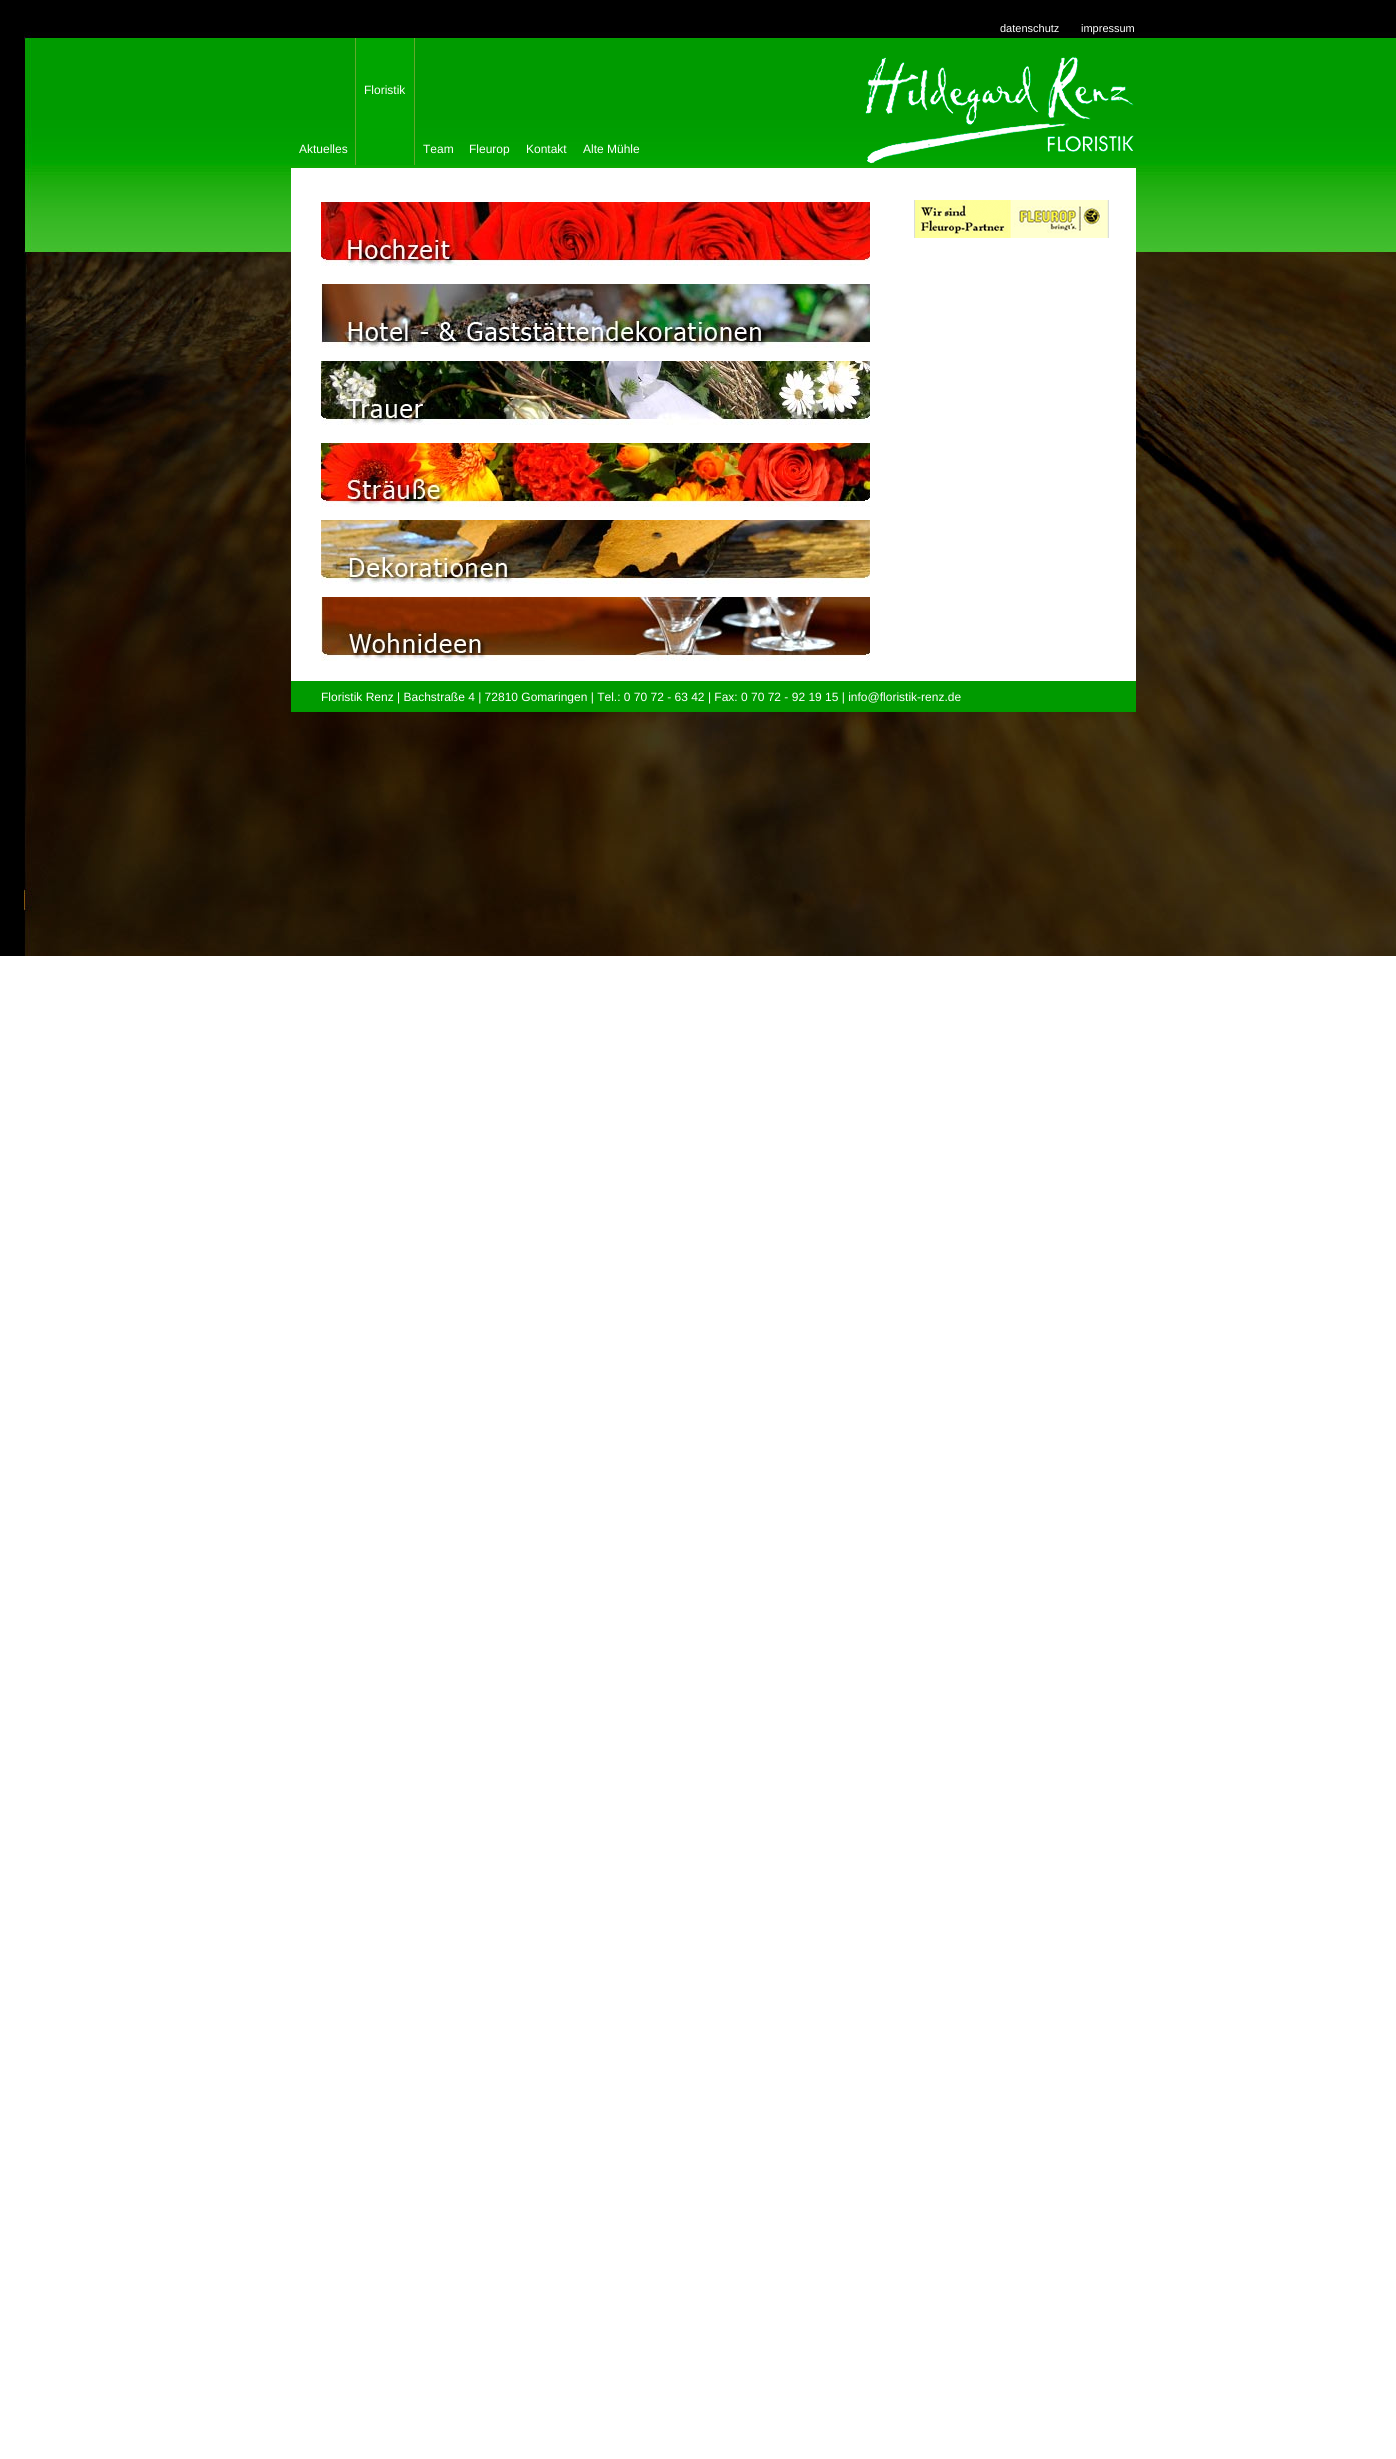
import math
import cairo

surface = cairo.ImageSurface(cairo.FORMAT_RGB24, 1396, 2459)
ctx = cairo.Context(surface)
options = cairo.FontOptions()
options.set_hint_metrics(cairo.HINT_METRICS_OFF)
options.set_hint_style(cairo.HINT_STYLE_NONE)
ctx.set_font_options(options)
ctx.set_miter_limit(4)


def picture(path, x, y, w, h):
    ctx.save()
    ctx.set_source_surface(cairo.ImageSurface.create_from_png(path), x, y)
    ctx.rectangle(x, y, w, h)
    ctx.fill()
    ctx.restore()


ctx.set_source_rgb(1, 1, 1)
ctx.paint()
picture("img1.png", 0, 0, 1396, 956)
ctx.select_font_face("Liberation Sans")
ctx.set_font_size(11)
ctx.set_source_rgb(1, 1, 1)
ctx.move_to(1000, 32)
ctx.show_text("datenschutz")
ctx.move_to(1081, 32)
ctx.show_text("impressum")
picture("img2.png", 865, 56, 269, 108)
ctx.set_source_rgb(0, 0.647, 0)
ctx.rectangle(356, 38, 58, 127)
ctx.fill()
ctx.set_source_rgb(0.388, 0.667, 0.169)
ctx.rectangle(414, 38, 1, 127)
ctx.fill()
ctx.rectangle(355, 38, 1, 127)
ctx.fill()
ctx.set_font_size(12)
ctx.set_source_rgb(1, 1, 1)
ctx.move_to(364, 94)
ctx.show_text("Floristik")
ctx.move_to(299, 153)
ctx.show_text("Aktuelles")
ctx.move_to(423, 153)
ctx.show_text("Team")
ctx.move_to(469, 153)
ctx.show_text("Fleurop")
ctx.move_to(526, 153)
ctx.show_text("Kontakt")
ctx.move_to(583, 153)
ctx.show_text("Alte Mühle")
ctx.rectangle(291, 168, 845, 513)
ctx.fill()
picture("img3.png", 321, 202, 549, 64)
picture("img4.png", 321, 284, 549, 64)
picture("img5.png", 321, 361, 549, 64)
picture("img6.png", 321, 443, 549, 64)
picture("img7.png", 321, 520, 549, 64)
picture("img8.png", 321, 597, 549, 64)
picture("img9.png", 914, 200, 195, 38)
ctx.set_source_rgb(0, 0.608, 0)
ctx.rectangle(291, 681, 845, 31)
ctx.fill()
ctx.set_source_rgb(1, 1, 1)
ctx.move_to(321, 701)
ctx.show_text("Floristik Renz | Bachstraße 4 | 72810 Gomaringen | Tel.: 0 70 72 - 63 42 | Fax: 0 70 72 - 92 19 15 | info@floristik-renz.de")
surface.write_to_png("page.png")
